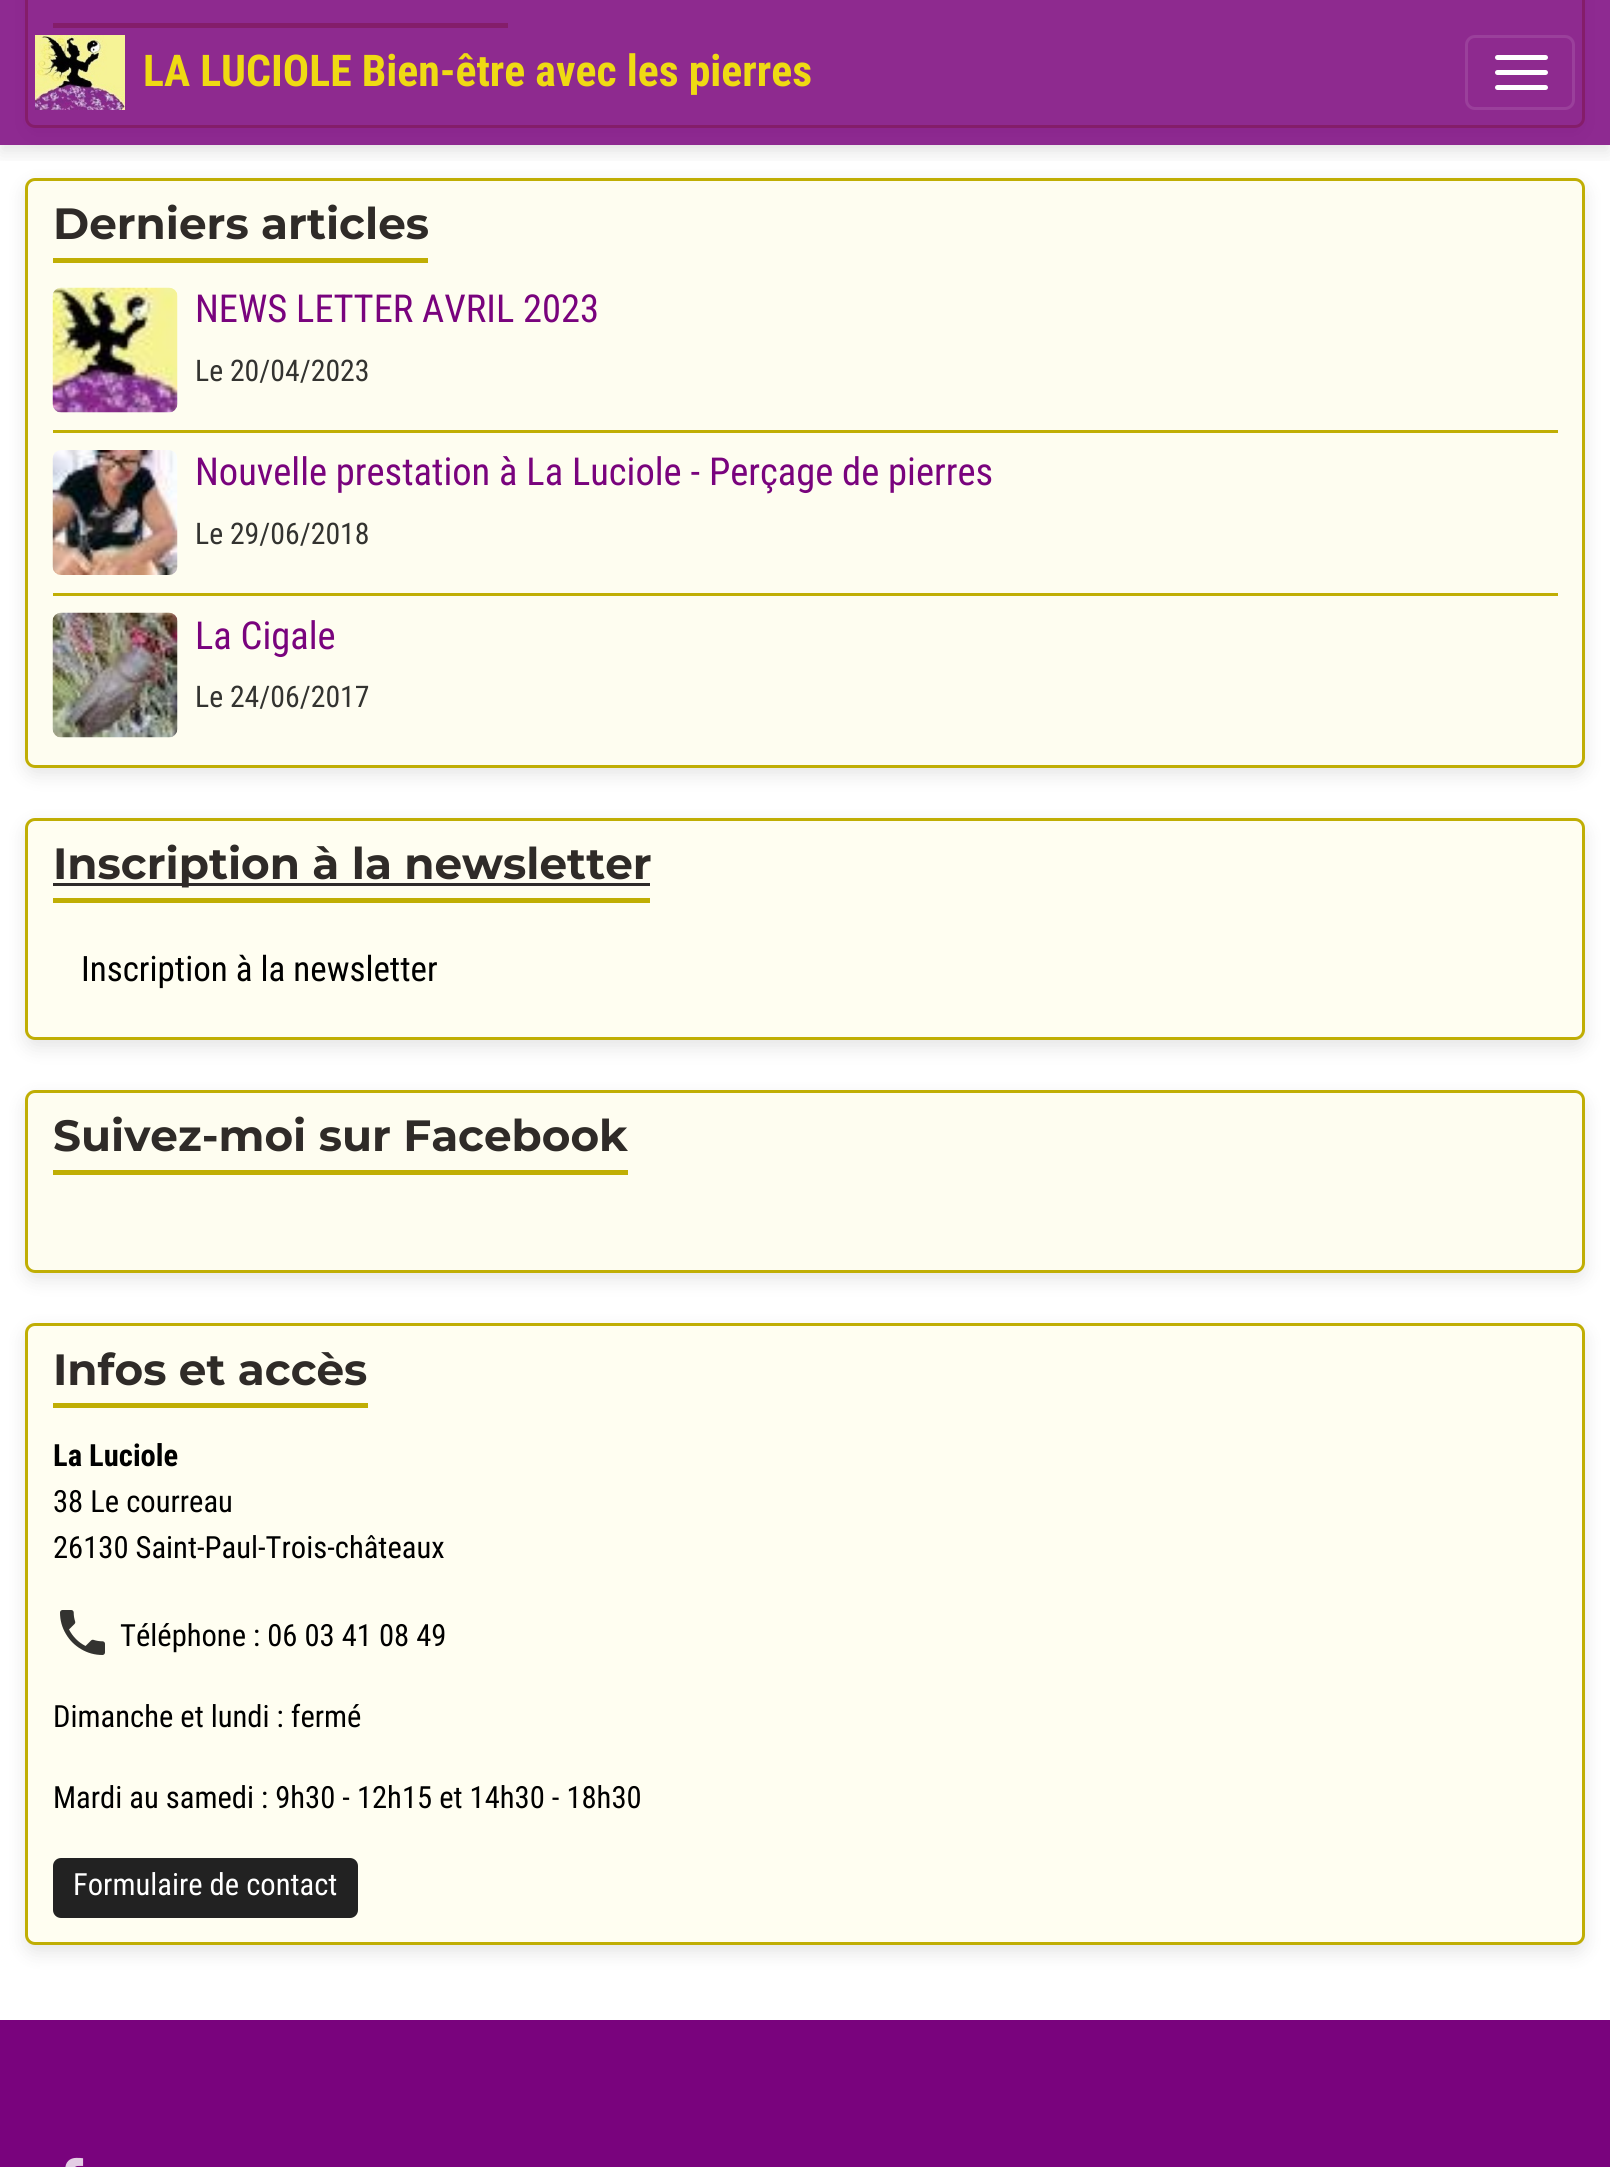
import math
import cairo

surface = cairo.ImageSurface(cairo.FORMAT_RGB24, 1610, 2167)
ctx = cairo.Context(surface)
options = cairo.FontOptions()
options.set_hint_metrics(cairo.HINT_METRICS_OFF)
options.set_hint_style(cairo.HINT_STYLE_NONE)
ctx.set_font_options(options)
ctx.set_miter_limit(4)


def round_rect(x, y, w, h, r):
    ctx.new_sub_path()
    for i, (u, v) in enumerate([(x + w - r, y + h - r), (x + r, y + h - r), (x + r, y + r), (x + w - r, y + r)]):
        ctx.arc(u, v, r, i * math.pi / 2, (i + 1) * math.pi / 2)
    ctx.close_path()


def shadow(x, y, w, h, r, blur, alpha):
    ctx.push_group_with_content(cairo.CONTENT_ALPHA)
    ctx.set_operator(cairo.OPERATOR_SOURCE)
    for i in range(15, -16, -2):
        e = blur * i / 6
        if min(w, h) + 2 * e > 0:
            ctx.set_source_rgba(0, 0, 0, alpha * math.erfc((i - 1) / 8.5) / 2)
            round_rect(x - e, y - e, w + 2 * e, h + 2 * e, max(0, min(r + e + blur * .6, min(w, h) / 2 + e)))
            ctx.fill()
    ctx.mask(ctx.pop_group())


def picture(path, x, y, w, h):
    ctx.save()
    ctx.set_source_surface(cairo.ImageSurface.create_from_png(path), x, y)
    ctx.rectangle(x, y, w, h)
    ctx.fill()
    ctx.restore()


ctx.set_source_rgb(1, 1, 1)
ctx.paint()
ctx.save()
ctx.set_fill_rule(cairo.FILL_RULE_EVEN_ODD)
ctx.new_path()
ctx.move_to(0, 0)
ctx.line_to(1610, 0)
ctx.line_to(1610, 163)
ctx.line_to(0, 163)
ctx.close_path()
ctx.move_to(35, -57)
ctx.line_to(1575, -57)
ctx.curve_to(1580.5, -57, 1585, -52.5, 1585, -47)
ctx.line_to(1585, 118)
ctx.curve_to(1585, 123.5, 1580.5, 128, 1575, 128)
ctx.line_to(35, 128)
ctx.curve_to(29.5, 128, 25, 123.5, 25, 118)
ctx.line_to(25, -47)
ctx.curve_to(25, -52.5, 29.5, -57, 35, -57)
ctx.close_path()
ctx.clip()
ctx.set_source_rgb(0, 0, 0)
shadow(25, -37, 1560, 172, 10, 9, 0.1)
ctx.restore()
ctx.set_source_rgba(0.969, 0.902, 0.29, 0.08)
round_rect(26.5, -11.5, 1557, 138, 8.5)
ctx.fill_preserve()
ctx.set_source_rgb(0.753, 0.682, 0.016)
ctx.set_line_width(3)
ctx.stroke()
ctx.rectangle(53, 23, 455, 5)
ctx.fill()
ctx.save()
ctx.set_fill_rule(cairo.FILL_RULE_EVEN_ODD)
ctx.new_path()
ctx.move_to(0, 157)
ctx.line_to(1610, 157)
ctx.line_to(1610, 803)
ctx.line_to(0, 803)
ctx.close_path()
ctx.move_to(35, 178)
ctx.line_to(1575, 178)
ctx.curve_to(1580.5, 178, 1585, 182.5, 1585, 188)
ctx.line_to(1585, 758)
ctx.curve_to(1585, 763.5, 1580.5, 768, 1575, 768)
ctx.line_to(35, 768)
ctx.curve_to(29.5, 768, 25, 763.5, 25, 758)
ctx.line_to(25, 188)
ctx.curve_to(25, 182.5, 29.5, 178, 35, 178)
ctx.close_path()
ctx.clip()
ctx.set_source_rgb(0, 0, 0)
shadow(25, 185, 1560, 590, 10, 9, 0.1)
ctx.restore()
ctx.set_source_rgba(0.969, 0.902, 0.29, 0.08)
round_rect(26.5, 179.5, 1557, 587, 8.5)
ctx.fill_preserve()
ctx.set_source_rgb(0.753, 0.682, 0.016)
ctx.stroke()
ctx.save()
ctx.rectangle(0, 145, 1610, 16)
ctx.clip()
ctx.set_source_rgb(0, 0, 0)
shadow(0, 8, 1610, 145, 0, 9, 0.1)
ctx.restore()
ctx.set_source_rgba(0.475, 0.012, 0.49, 0.84)
ctx.rectangle(0, 0, 1610, 145)
ctx.fill()
picture("img1.png", 35, 35, 90, 75)
ctx.select_font_face("Roboto Condensed", cairo.FONT_SLANT_NORMAL, cairo.FONT_WEIGHT_BOLD)
ctx.set_font_size(43.75)
ctx.set_source_rgb(0.937, 0.855, 0.078)
ctx.move_to(143, 86)
ctx.show_text("LA LUCIOLE Bien-être avec les pierres")
round_rect(1466.5, 36.5, 107, 72, 8.5)
ctx.set_source_rgb(0.604, 0.251, 0.608)
ctx.stroke()
ctx.set_source_rgb(1, 1, 1)
round_rect(1495, 55, 53, 5, 2.5)
ctx.fill()
round_rect(1495, 70, 53, 5, 2.5)
ctx.fill()
round_rect(1495, 85, 53, 5, 2.5)
ctx.fill()
ctx.set_source_rgb(0.753, 0.682, 0.016)
ctx.rectangle(53, 258, 375, 5)
ctx.fill()
ctx.select_font_face("Montserrat", cairo.FONT_SLANT_NORMAL, cairo.FONT_WEIGHT_BOLD)
ctx.set_source_rgb(0.184, 0.169, 0.157)
ctx.move_to(53, 239)
ctx.show_text("Derniers articles")
picture("img2.png", 52, 287, 126, 126)
ctx.select_font_face("Roboto Condensed")
ctx.set_font_size(38.5)
ctx.set_source_rgb(0.475, 0.012, 0.49)
ctx.move_to(195, 322)
ctx.show_text("NEWS LETTER AVRIL 2023")
ctx.set_font_size(29.75)
ctx.set_source_rgb(0.2, 0.2, 0.188)
ctx.move_to(195, 381)
ctx.show_text("Le 20/04/2023")
ctx.set_source_rgb(0.753, 0.682, 0.016)
ctx.rectangle(53, 430, 1505, 3)
ctx.fill()
picture("img3.png", 52, 450, 126, 125)
ctx.set_font_size(38.5)
ctx.set_source_rgb(0.475, 0.012, 0.49)
ctx.move_to(195, 485)
ctx.show_text("Nouvelle prestation à La Luciole - Perçage de pierres")
ctx.set_font_size(29.75)
ctx.set_source_rgb(0.2, 0.2, 0.188)
ctx.move_to(195, 544)
ctx.show_text("Le 29/06/2018")
ctx.set_source_rgb(0.753, 0.682, 0.016)
ctx.rectangle(53, 593, 1505, 3)
ctx.fill()
picture("img4.png", 52, 612, 126, 126)
ctx.set_font_size(38.5)
ctx.set_source_rgb(0.475, 0.012, 0.49)
ctx.move_to(195, 649)
ctx.show_text("La Cigale")
ctx.set_font_size(29.75)
ctx.set_source_rgb(0.2, 0.2, 0.188)
ctx.move_to(195, 707)
ctx.show_text("Le 24/06/2017")
ctx.set_source_rgb(0, 0, 0)
shadow(25, 825, 1560, 223, 10, 9, 0.1)
ctx.set_source_rgb(1, 0.996, 0.945)
round_rect(26.5, 819.5, 1557, 219, 8.5)
ctx.fill_preserve()
ctx.set_source_rgb(0.753, 0.682, 0.016)
ctx.stroke()
ctx.rectangle(53, 898, 597, 5)
ctx.fill()
ctx.set_source_rgb(0.184, 0.169, 0.157)
ctx.rectangle(53, 883, 597, 3)
ctx.fill()
ctx.select_font_face("Montserrat", cairo.FONT_SLANT_NORMAL, cairo.FONT_WEIGHT_BOLD)
ctx.set_font_size(43.75)
ctx.move_to(53, 879)
ctx.show_text("Inscription à la newsletter")
ctx.select_font_face("Roboto Condensed")
ctx.set_font_size(35)
ctx.set_source_rgb(0, 0, 0)
ctx.move_to(81, 981)
ctx.show_text("Inscription à la newsletter")
ctx.save()
ctx.set_fill_rule(cairo.FILL_RULE_EVEN_ODD)
ctx.new_path()
ctx.move_to(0, 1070)
ctx.line_to(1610, 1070)
ctx.line_to(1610, 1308)
ctx.line_to(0, 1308)
ctx.close_path()
ctx.move_to(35, 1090)
ctx.line_to(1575, 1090)
ctx.curve_to(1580.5, 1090, 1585, 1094.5, 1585, 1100)
ctx.line_to(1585, 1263)
ctx.curve_to(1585, 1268.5, 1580.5, 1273, 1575, 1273)
ctx.line_to(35, 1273)
ctx.curve_to(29.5, 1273, 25, 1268.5, 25, 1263)
ctx.line_to(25, 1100)
ctx.curve_to(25, 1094.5, 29.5, 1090, 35, 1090)
ctx.close_path()
ctx.clip()
ctx.set_source_rgb(0, 0, 0)
shadow(25, 1098, 1560, 182, 10, 9, 0.1)
ctx.restore()
ctx.set_source_rgba(0.969, 0.902, 0.29, 0.08)
round_rect(26.5, 1091.5, 1557, 180, 8.5)
ctx.fill_preserve()
ctx.set_source_rgb(0.753, 0.682, 0.016)
ctx.stroke()
ctx.rectangle(53, 1170, 575, 5)
ctx.fill()
ctx.select_font_face("Montserrat", cairo.FONT_SLANT_NORMAL, cairo.FONT_WEIGHT_BOLD)
ctx.set_font_size(43.75)
ctx.set_source_rgb(0.184, 0.169, 0.157)
ctx.move_to(53, 1151)
ctx.show_text("Suivez-moi sur Facebook")
ctx.set_source_rgb(0, 0, 0)
shadow(25, 1330, 1560, 623, 10, 9, 0.1)
ctx.set_source_rgb(1, 0.996, 0.945)
round_rect(26.5, 1324.5, 1557, 619, 8.5)
ctx.fill_preserve()
ctx.set_source_rgb(0.753, 0.682, 0.016)
ctx.stroke()
ctx.rectangle(53, 1403, 315, 5)
ctx.fill()
ctx.set_source_rgb(0.184, 0.169, 0.157)
ctx.move_to(53, 1385)
ctx.show_text("Infos et accès")
ctx.select_font_face("Roboto Condensed", cairo.FONT_SLANT_NORMAL, cairo.FONT_WEIGHT_BOLD)
ctx.set_font_size(30.6)
ctx.set_source_rgb(0, 0, 0)
ctx.move_to(53, 1466)
ctx.show_text("La Luciole")
ctx.select_font_face("Roboto Condensed")
ctx.move_to(53, 1512)
ctx.show_text("38 Le courreau")
ctx.move_to(53, 1558)
ctx.show_text("26130 Saint-Paul-Trois-châteaux")
picture("img5.png", 60, 1610, 45, 45)
ctx.move_to(120, 1646)
ctx.show_text("Téléphone : 06 03 41 08 49")
ctx.move_to(53, 1727)
ctx.show_text("Dimanche et lundi : fermé")
ctx.move_to(53, 1808)
ctx.show_text("Mardi au samedi : 9h30 - 12h15 et 14h30 - 18h30")
ctx.set_source_rgb(0.133, 0.133, 0.133)
round_rect(54.5, 1859.5, 302, 57, 6.5)
ctx.fill_preserve()
ctx.stroke()
ctx.set_source_rgb(1, 1, 1)
ctx.move_to(73, 1895)
ctx.show_text("Formulaire de contact")
ctx.set_source_rgb(0.475, 0.012, 0.49)
ctx.rectangle(0, 2020, 1610, 147)
ctx.fill()
picture("img6.png", 65, 2157, 19, 10)
surface.write_to_png("page.png")
